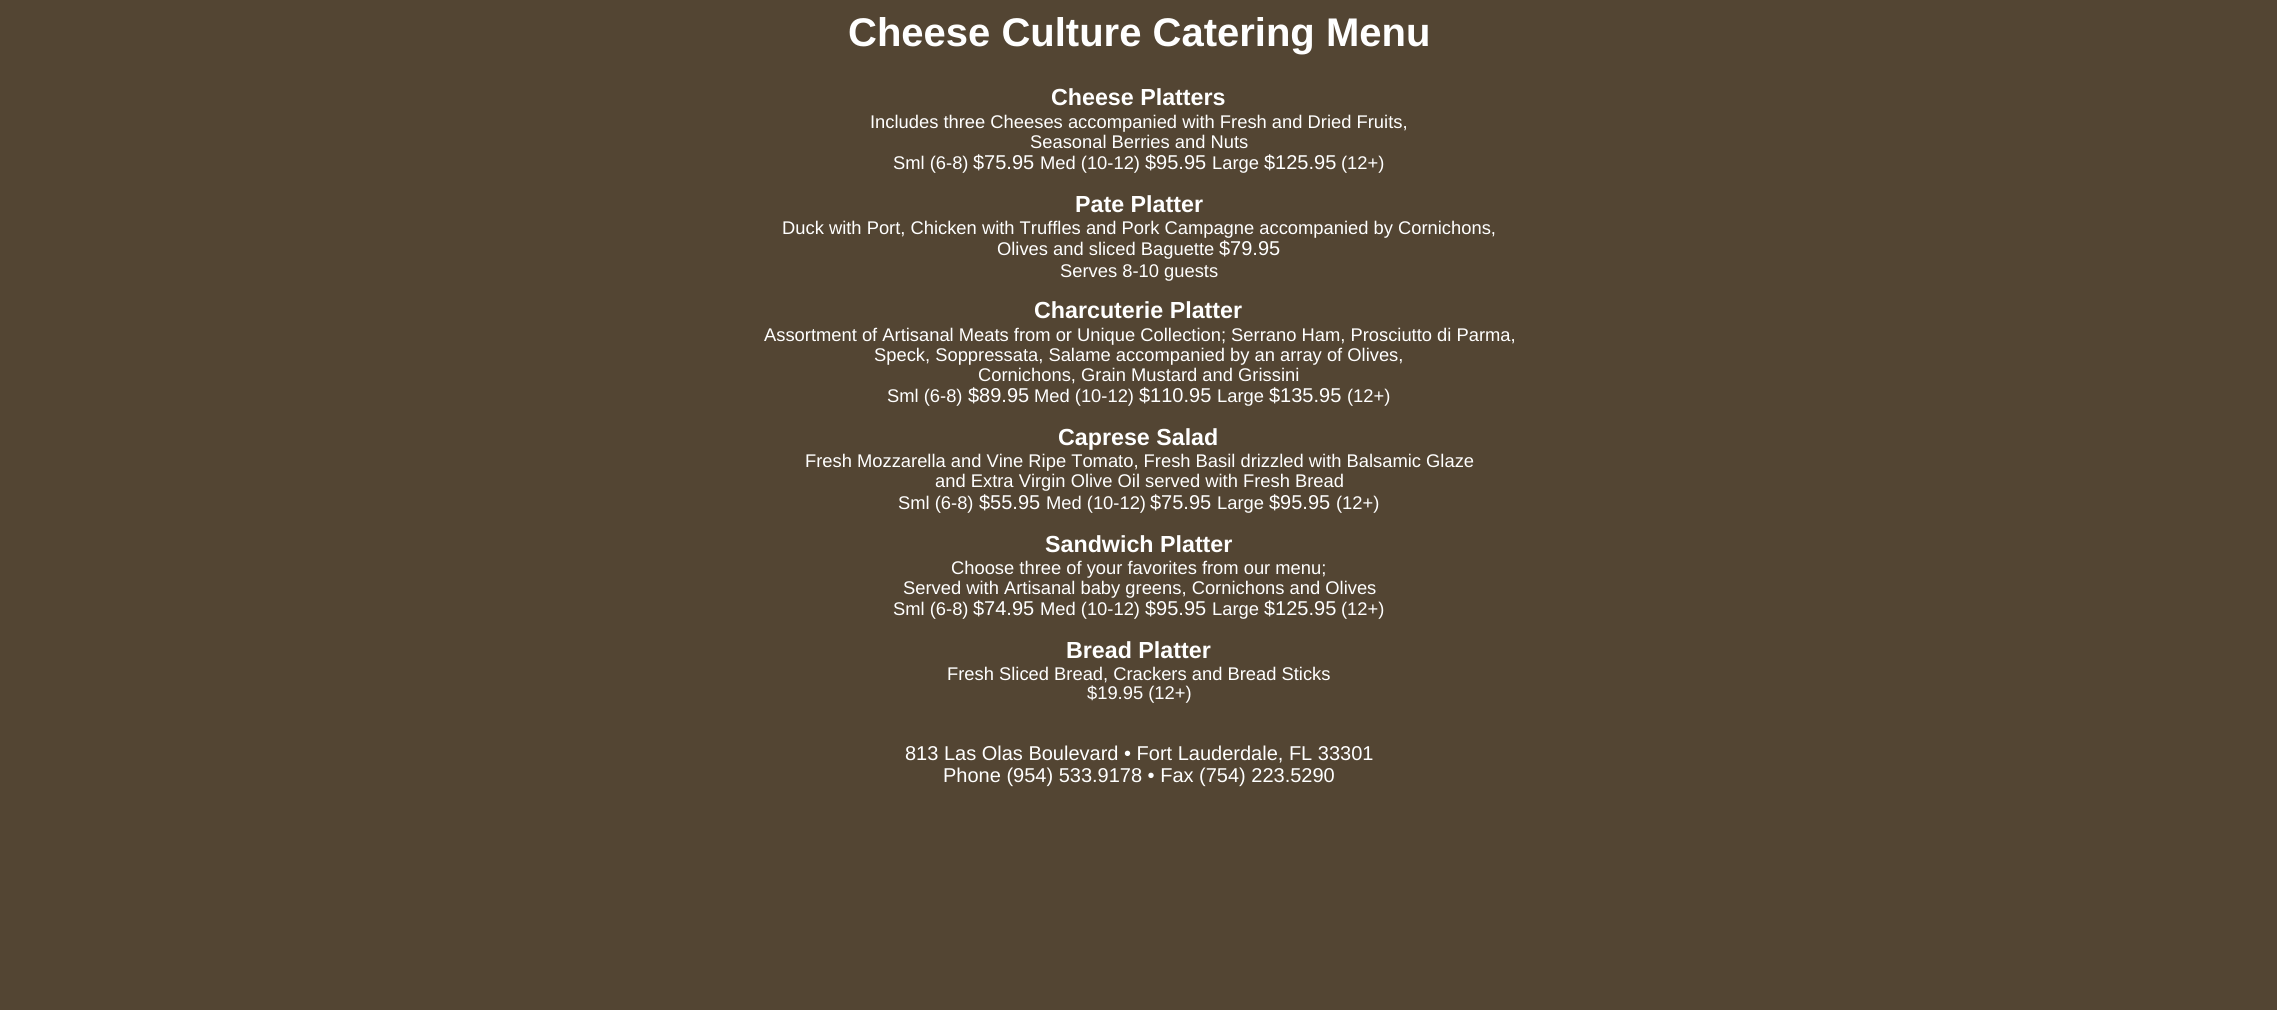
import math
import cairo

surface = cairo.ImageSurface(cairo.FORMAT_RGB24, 2277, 1010)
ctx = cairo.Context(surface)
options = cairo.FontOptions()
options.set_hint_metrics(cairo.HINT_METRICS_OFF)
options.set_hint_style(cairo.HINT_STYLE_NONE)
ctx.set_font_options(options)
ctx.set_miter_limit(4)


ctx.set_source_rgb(0.325, 0.271, 0.2)
ctx.paint()
ctx.select_font_face("Liberation Sans", cairo.FONT_SLANT_NORMAL, cairo.FONT_WEIGHT_BOLD)
ctx.set_font_size(40)
ctx.set_source_rgb(1, 1, 1)
ctx.move_to(848, 46)
ctx.show_text("Cheese Culture Catering Menu")
ctx.set_font_size(23.25)
ctx.move_to(1051, 105)
ctx.show_text("Cheese Platters")
ctx.select_font_face("Liberation Sans")
ctx.set_font_size(18.35)
ctx.move_to(870, 128)
ctx.show_text("Includes three Cheeses accompanied with Fresh and Dried Fruits,")
ctx.move_to(1030, 148)
ctx.show_text("Seasonal Berries and Nuts")
ctx.move_to(893, 169)
ctx.show_text("Sml (6-8)")
ctx.set_font_size(20)
ctx.move_to(973, 169)
ctx.show_text("$75.95")
ctx.set_font_size(18.35)
ctx.move_to(1040, 169)
ctx.show_text("Med (10-12)")
ctx.set_font_size(20)
ctx.move_to(1145, 169)
ctx.show_text("$95.95")
ctx.set_font_size(18.35)
ctx.move_to(1212, 169)
ctx.show_text("Large")
ctx.set_font_size(20)
ctx.move_to(1264, 169)
ctx.show_text("$125.95")
ctx.set_font_size(18.35)
ctx.move_to(1341, 169)
ctx.show_text("(12+)")
ctx.select_font_face("Liberation Sans", cairo.FONT_SLANT_NORMAL, cairo.FONT_WEIGHT_BOLD)
ctx.set_font_size(23.25)
ctx.move_to(1075, 212)
ctx.show_text("Pate Platter")
ctx.select_font_face("Liberation Sans")
ctx.set_font_size(18.35)
ctx.move_to(782, 234)
ctx.show_text("Duck with Port, Chicken with Truffles and Pork Campagne accompanied by Cornichons,")
ctx.move_to(997, 255)
ctx.show_text("Olives and sliced Baguette")
ctx.set_font_size(20)
ctx.move_to(1219, 255)
ctx.show_text("$79.95")
ctx.set_font_size(18.35)
ctx.move_to(1060, 277)
ctx.show_text("Serves 8-10 guests")
ctx.select_font_face("Liberation Sans", cairo.FONT_SLANT_NORMAL, cairo.FONT_WEIGHT_BOLD)
ctx.set_font_size(23.25)
ctx.move_to(1034, 318)
ctx.show_text("Charcuterie Platter")
ctx.select_font_face("Liberation Sans")
ctx.set_font_size(18.35)
ctx.move_to(764, 341)
ctx.show_text("Assortment of Artisanal Meats from or Unique Collection; Serrano Ham, Prosciutto di Parma,")
ctx.move_to(874, 361)
ctx.show_text("Speck, Soppressata, Salame accompanied by an array of Olives,")
ctx.move_to(978, 381)
ctx.show_text("Cornichons, Grain Mustard and Grissini")
ctx.move_to(887, 402)
ctx.show_text("Sml (6-8)")
ctx.set_font_size(20)
ctx.move_to(968, 402)
ctx.show_text("$89.95")
ctx.set_font_size(18.35)
ctx.move_to(1034, 402)
ctx.show_text("Med (10-12)")
ctx.set_font_size(20)
ctx.move_to(1139, 402)
ctx.show_text("$110.95")
ctx.set_font_size(18.35)
ctx.move_to(1217, 402)
ctx.show_text("Large")
ctx.set_font_size(20)
ctx.move_to(1269, 402)
ctx.show_text("$135.95")
ctx.set_font_size(18.35)
ctx.move_to(1347, 402)
ctx.show_text("(12+)")
ctx.select_font_face("Liberation Sans", cairo.FONT_SLANT_NORMAL, cairo.FONT_WEIGHT_BOLD)
ctx.set_font_size(23.25)
ctx.move_to(1058, 445)
ctx.show_text("Caprese Salad")
ctx.select_font_face("Liberation Sans")
ctx.set_font_size(18.35)
ctx.move_to(805, 467)
ctx.show_text("Fresh Mozzarella and Vine Ripe Tomato, Fresh Basil drizzled with Balsamic Glaze")
ctx.move_to(935, 487)
ctx.show_text("and Extra Virgin Olive Oil served with Fresh Bread")
ctx.move_to(898, 509)
ctx.show_text("Sml (6-8)")
ctx.set_font_size(20)
ctx.move_to(979, 509)
ctx.show_text("$55.95")
ctx.set_font_size(18.35)
ctx.move_to(1046, 509)
ctx.show_text("Med (10-12)")
ctx.set_font_size(20)
ctx.move_to(1150, 509)
ctx.show_text("$75.95")
ctx.set_font_size(18.35)
ctx.move_to(1217, 509)
ctx.show_text("Large")
ctx.set_font_size(20)
ctx.move_to(1269, 509)
ctx.show_text("$95.95")
ctx.set_font_size(18.35)
ctx.move_to(1336, 509)
ctx.show_text("(12+)")
ctx.select_font_face("Liberation Sans", cairo.FONT_SLANT_NORMAL, cairo.FONT_WEIGHT_BOLD)
ctx.set_font_size(23.25)
ctx.move_to(1045, 552)
ctx.show_text("Sandwich Platter")
ctx.select_font_face("Liberation Sans")
ctx.set_font_size(18.35)
ctx.move_to(951, 574)
ctx.show_text("Choose three of your favorites from our menu;")
ctx.move_to(903, 594)
ctx.show_text("Served with Artisanal baby greens, Cornichons and Olives")
ctx.move_to(893, 615)
ctx.show_text("Sml (6-8)")
ctx.set_font_size(20)
ctx.move_to(973, 615)
ctx.show_text("$74.95")
ctx.set_font_size(18.35)
ctx.move_to(1040, 615)
ctx.show_text("Med (10-12)")
ctx.set_font_size(20)
ctx.move_to(1145, 615)
ctx.show_text("$95.95")
ctx.set_font_size(18.35)
ctx.move_to(1212, 615)
ctx.show_text("Large")
ctx.set_font_size(20)
ctx.move_to(1264, 615)
ctx.show_text("$125.95")
ctx.set_font_size(18.35)
ctx.move_to(1341, 615)
ctx.show_text("(12+)")
ctx.select_font_face("Liberation Sans", cairo.FONT_SLANT_NORMAL, cairo.FONT_WEIGHT_BOLD)
ctx.set_font_size(23.25)
ctx.move_to(1066, 658)
ctx.show_text("Bread Platter")
ctx.select_font_face("Liberation Sans")
ctx.set_font_size(18.35)
ctx.move_to(947, 680)
ctx.show_text("Fresh Sliced Bread, Crackers and Bread Sticks")
ctx.move_to(1087, 699)
ctx.show_text("$19.95 (12+)")
ctx.set_font_size(20)
ctx.move_to(905, 760)
ctx.show_text("813 Las Olas Boulevard • Fort Lauderdale, FL 33301")
ctx.move_to(943, 782)
ctx.show_text("Phone (954) 533.9178 • Fax (754) 223.5290")
surface.write_to_png("page.png")
